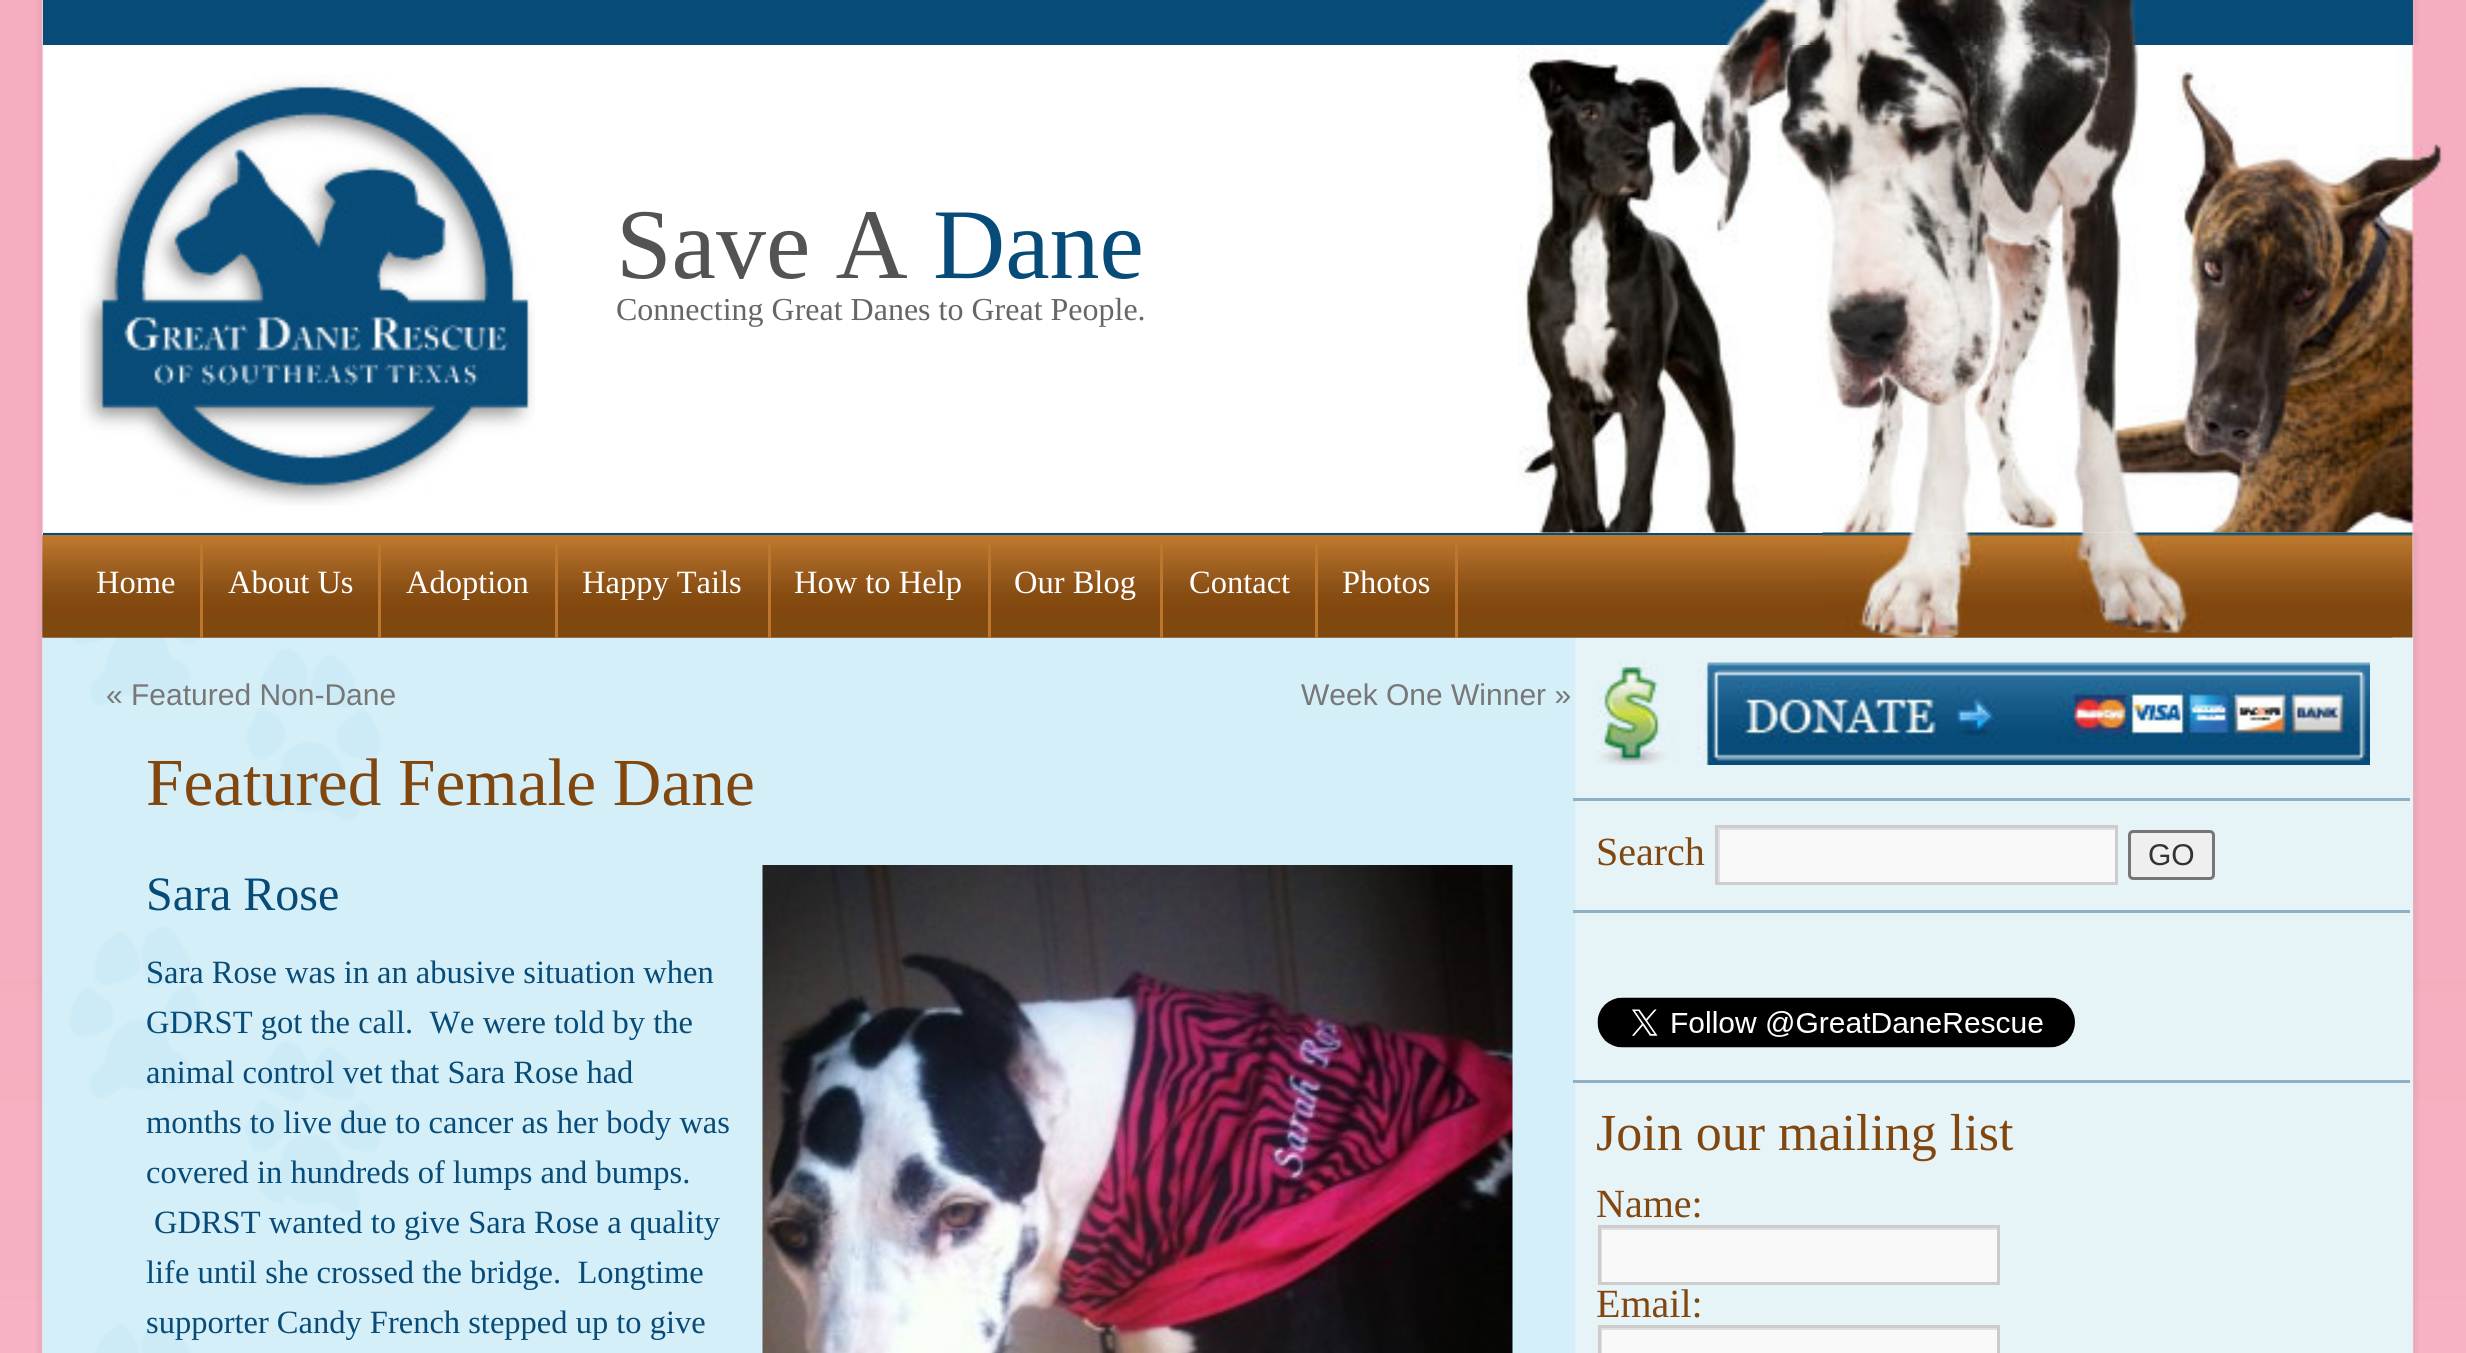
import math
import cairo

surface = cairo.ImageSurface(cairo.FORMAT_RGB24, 2466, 1353)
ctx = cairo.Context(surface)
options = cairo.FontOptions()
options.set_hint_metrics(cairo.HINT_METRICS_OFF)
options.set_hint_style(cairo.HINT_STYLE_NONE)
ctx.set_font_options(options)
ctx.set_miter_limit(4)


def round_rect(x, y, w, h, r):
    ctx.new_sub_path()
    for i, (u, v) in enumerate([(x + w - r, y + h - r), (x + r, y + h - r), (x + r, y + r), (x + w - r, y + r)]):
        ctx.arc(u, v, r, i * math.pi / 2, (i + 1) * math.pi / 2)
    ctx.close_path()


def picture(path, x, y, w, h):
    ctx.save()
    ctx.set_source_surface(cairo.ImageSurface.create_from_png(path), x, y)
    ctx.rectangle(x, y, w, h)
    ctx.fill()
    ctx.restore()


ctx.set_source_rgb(1, 1, 1)
ctx.paint()
picture("img1.png", 0, 0, 2466, 1353)
picture("img2.png", 36, 0, 2383, 1353)
ctx.set_source_rgb(0.031, 0.298, 0.475)
ctx.rectangle(43, 0, 2370, 45)
ctx.fill()
picture("img3.png", 1718, 0, 420, 45)
picture("img4.png", 80, 73, 455, 433)
ctx.select_font_face("Liberation Serif")
ctx.set_font_size(100)
ctx.set_source_rgb(0.325, 0.325, 0.325)
ctx.move_to(616, 278)
ctx.show_text("Save A")
ctx.set_source_rgb(0.031, 0.298, 0.475)
ctx.move_to(933, 278)
ctx.show_text("Dane")
ctx.set_font_size(32)
ctx.set_source_rgb(0.4, 0.4, 0.4)
ctx.move_to(616, 320)
ctx.show_text("Connecting Great Danes to Great People.")
ctx.set_source_rgb(0.835, 0.937, 0.973)
ctx.rectangle(2412, 533, 1, 820)
ctx.fill()
picture("img9.png", 42, 532, 2371, 821)
picture("img5.png", 1517, 45, 926, 488)
picture("img6.png", 42, 535, 1781, 103)
ctx.set_source_rgb(0.031, 0.298, 0.475)
ctx.rectangle(43, 533, 1780, 2)
ctx.fill()
picture("img7.png", 42, 535, 2351, 103)
ctx.set_source_rgb(0.737, 0.463, 0.18)
ctx.rectangle(200, 535, 3, 103)
ctx.fill()
ctx.set_font_size(32.5)
ctx.set_source_rgb(1, 1, 1)
ctx.move_to(96, 593)
ctx.show_text("Home")
ctx.set_source_rgb(0.737, 0.463, 0.18)
ctx.rectangle(378, 535, 3, 103)
ctx.fill()
ctx.set_source_rgb(1, 1, 1)
ctx.move_to(228, 593)
ctx.show_text("About Us")
ctx.set_source_rgb(0.737, 0.463, 0.18)
ctx.rectangle(555, 535, 3, 103)
ctx.fill()
ctx.set_source_rgb(1, 1, 1)
ctx.move_to(406, 593)
ctx.show_text("Adoption")
ctx.set_source_rgb(0.737, 0.463, 0.18)
ctx.rectangle(768, 535, 3, 103)
ctx.fill()
ctx.set_source_rgb(1, 1, 1)
ctx.move_to(582, 593)
ctx.show_text("Happy Tails")
ctx.set_source_rgb(0.737, 0.463, 0.18)
ctx.rectangle(988, 535, 3, 103)
ctx.fill()
ctx.set_source_rgb(1, 1, 1)
ctx.move_to(794, 593)
ctx.show_text("How to Help")
ctx.set_source_rgb(0.737, 0.463, 0.18)
ctx.rectangle(1160, 535, 3, 103)
ctx.fill()
ctx.set_source_rgb(1, 1, 1)
ctx.move_to(1014, 593)
ctx.show_text("Our Blog")
ctx.set_source_rgb(0.737, 0.463, 0.18)
ctx.rectangle(1315, 535, 3, 103)
ctx.fill()
ctx.set_source_rgb(1, 1, 1)
ctx.move_to(1189, 593)
ctx.show_text("Contact")
ctx.set_source_rgb(0.737, 0.463, 0.18)
ctx.rectangle(1455, 535, 3, 103)
ctx.fill()
ctx.set_source_rgb(1, 1, 1)
ctx.move_to(1342, 593)
ctx.show_text("Photos")
picture("img8.png", 1822, 532, 591, 106)
ctx.select_font_face("Liberation Sans")
ctx.set_font_size(30)
ctx.set_source_rgb(0.467, 0.467, 0.467)
ctx.move_to(106, 705)
ctx.show_text("« Featured Non-Dane")
ctx.move_to(1301, 705)
ctx.show_text("Week One Winner »")
ctx.select_font_face("Liberation Serif")
ctx.set_font_size(67.25)
ctx.set_source_rgb(0.506, 0.278, 0.059)
ctx.move_to(146, 805)
ctx.show_text("Featured Female Dane")
ctx.set_font_size(48)
ctx.set_source_rgb(0.031, 0.298, 0.475)
ctx.move_to(146, 910)
ctx.show_text("Sara Rose")
picture("img10.png", 762, 865, 751, 488)
ctx.set_font_size(32.5)
ctx.move_to(146, 983)
ctx.show_text("Sara Rose was in an abusive situation when")
ctx.move_to(146, 1033)
ctx.show_text("GDRST got the call.  We were told by the")
ctx.move_to(146, 1083)
ctx.show_text("animal control vet that Sara Rose had")
ctx.move_to(146, 1133)
ctx.show_text("months to live due to cancer as her body was")
ctx.move_to(146, 1183)
ctx.show_text("covered in hundreds of lumps and bumps.")
ctx.move_to(154, 1233)
ctx.show_text("GDRST wanted to give Sara Rose a quality")
ctx.move_to(146, 1283)
ctx.show_text("life until she crossed the bridge.  Longtime")
ctx.move_to(146, 1333)
ctx.show_text("supporter Candy French stepped up to give")
ctx.set_source_rgb(0.553, 0.69, 0.773)
ctx.rectangle(1573, 798, 837, 3)
ctx.fill()
picture("img11.png", 1597, 662, 773, 103)
ctx.rectangle(1573, 910, 837, 3)
ctx.fill()
ctx.set_font_size(40)
ctx.set_source_rgb(0.506, 0.278, 0.059)
ctx.move_to(1596, 865)
ctx.show_text("Search")
ctx.set_source_rgb(0.976, 0.976, 0.976)
ctx.rectangle(1720, 830, 395, 52)
ctx.fill()
ctx.save()
ctx.rectangle(1718, 828, 397, 55)
ctx.clip()
ctx.set_source_rgb(0.878, 0.878, 0.878)
ctx.set_fill_rule(cairo.FILL_RULE_EVEN_ODD)
ctx.new_path()
ctx.move_to(1470, 580)
ctx.line_to(2362, 580)
ctx.line_to(2362, 1130)
ctx.line_to(1470, 1130)
ctx.close_path()
ctx.move_to(1720, 830)
ctx.line_to(2118, 830)
ctx.line_to(2118, 885)
ctx.line_to(1720, 885)
ctx.close_path()
ctx.fill()
ctx.restore()
ctx.rectangle(1716.5, 826.5, 400, 57)
ctx.set_source_rgb(0.8, 0.8, 0.8)
ctx.set_line_width(3)
ctx.stroke()
ctx.set_source_rgb(0.937, 0.937, 0.937)
round_rect(2129.5, 831.5, 84, 47, 3.5)
ctx.fill_preserve()
ctx.set_source_rgb(0.463, 0.463, 0.463)
ctx.stroke()
ctx.select_font_face("Liberation Sans")
ctx.set_font_size(30)
ctx.set_source_rgb(0.2, 0.2, 0.2)
ctx.move_to(2148, 865)
ctx.show_text("GO")
ctx.set_source_rgb(0.553, 0.69, 0.773)
ctx.rectangle(1573, 1080, 837, 3)
ctx.fill()
picture("img12.png", 1597, 997, 478, 51)
ctx.select_font_face("Liberation Serif")
ctx.set_font_size(52)
ctx.set_source_rgb(0.506, 0.278, 0.059)
ctx.move_to(1596, 1150)
ctx.show_text("Join our mailing list")
ctx.set_font_size(40)
ctx.move_to(1596, 1217)
ctx.show_text("Name:")
ctx.set_source_rgb(0.976, 0.976, 0.976)
ctx.rectangle(1602, 1230, 395, 52)
ctx.fill()
ctx.save()
ctx.rectangle(1600, 1228, 398, 55)
ctx.clip()
ctx.set_source_rgb(0.878, 0.878, 0.878)
ctx.set_fill_rule(cairo.FILL_RULE_EVEN_ODD)
ctx.new_path()
ctx.move_to(1352, 980)
ctx.line_to(2245, 980)
ctx.line_to(2245, 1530)
ctx.line_to(1352, 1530)
ctx.close_path()
ctx.move_to(1602, 1230)
ctx.line_to(2000, 1230)
ctx.line_to(2000, 1285)
ctx.line_to(1602, 1285)
ctx.close_path()
ctx.fill()
ctx.restore()
ctx.rectangle(1599.5, 1226.5, 399, 57)
ctx.set_source_rgb(0.8, 0.8, 0.8)
ctx.stroke()
ctx.set_source_rgb(0.506, 0.278, 0.059)
ctx.move_to(1596, 1317)
ctx.show_text("Email:")
ctx.set_source_rgb(0.976, 0.976, 0.976)
ctx.rectangle(1602, 1330, 395, 23)
ctx.fill()
ctx.save()
ctx.rectangle(1600, 1328, 398, 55)
ctx.clip()
ctx.set_source_rgb(0.878, 0.878, 0.878)
ctx.set_fill_rule(cairo.FILL_RULE_EVEN_ODD)
ctx.new_path()
ctx.move_to(1352, 1080)
ctx.line_to(2245, 1080)
ctx.line_to(2245, 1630)
ctx.line_to(1352, 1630)
ctx.close_path()
ctx.move_to(1602, 1330)
ctx.line_to(2000, 1330)
ctx.line_to(2000, 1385)
ctx.line_to(1602, 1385)
ctx.close_path()
ctx.fill()
ctx.restore()
ctx.rectangle(1599.5, 1326.5, 399, 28)
ctx.set_source_rgb(0.8, 0.8, 0.8)
ctx.stroke()
surface.write_to_png("page.png")
